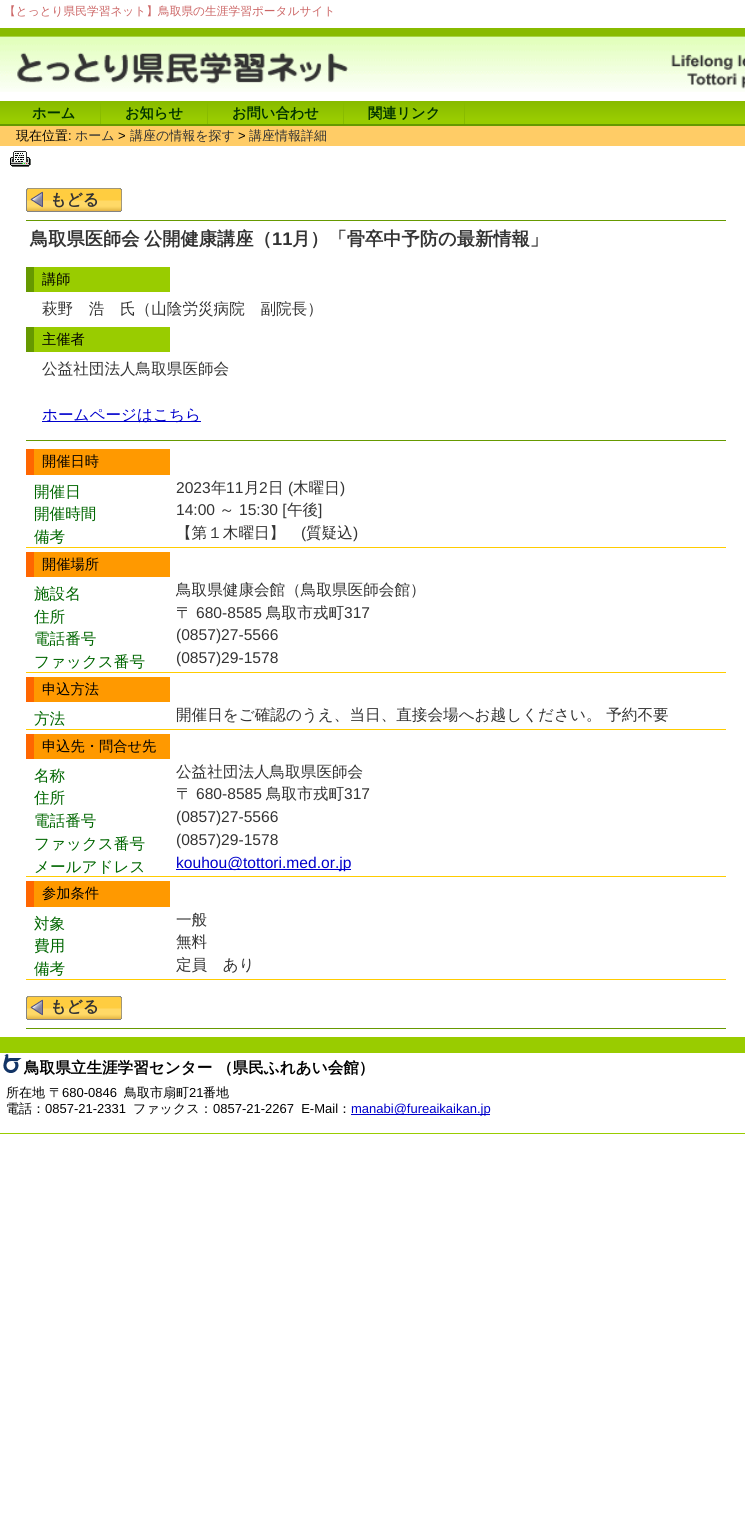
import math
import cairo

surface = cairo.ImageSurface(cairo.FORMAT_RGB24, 745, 1522)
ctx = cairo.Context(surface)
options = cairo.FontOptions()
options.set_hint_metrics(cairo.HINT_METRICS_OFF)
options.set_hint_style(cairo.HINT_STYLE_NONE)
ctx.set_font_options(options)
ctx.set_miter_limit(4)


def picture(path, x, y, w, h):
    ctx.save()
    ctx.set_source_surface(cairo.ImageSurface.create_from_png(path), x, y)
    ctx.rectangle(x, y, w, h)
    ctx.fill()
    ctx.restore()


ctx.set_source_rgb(1, 1, 1)
ctx.paint()
ctx.select_font_face("WenQuanYi Zen Hei Medium")
ctx.set_font_size(11.7)
ctx.set_source_rgb(0.8, 0.4, 0.4)
ctx.move_to(4, 15)
ctx.show_text("【とっとり県民学習ネット】鳥取県の生涯学習ポータルサイト")
picture("img1.png", 0, 28, 745, 64)
picture("img2.png", 0, 101, 745, 23)
ctx.set_source_rgb(0.4, 0.6, 0)
ctx.rectangle(0, 124, 745, 2)
ctx.fill()
ctx.set_source_rgb(0.533, 0.733, 0)
ctx.rectangle(100, 101, 1, 23)
ctx.fill()
ctx.select_font_face("WenQuanYi Zen Hei", cairo.FONT_SLANT_NORMAL, cairo.FONT_WEIGHT_BOLD)
ctx.set_font_size(14.25)
ctx.set_source_rgb(0, 0.2, 0)
ctx.move_to(32, 118)
ctx.show_text("ホーム")
ctx.set_source_rgb(0.533, 0.733, 0)
ctx.rectangle(207, 101, 1, 23)
ctx.fill()
ctx.set_source_rgb(0, 0.2, 0)
ctx.move_to(125, 118)
ctx.show_text("お知らせ")
ctx.set_source_rgb(0.533, 0.733, 0)
ctx.rectangle(343, 101, 1, 23)
ctx.fill()
ctx.set_source_rgb(0, 0.2, 0)
ctx.move_to(232, 118)
ctx.show_text("お問い合わせ")
ctx.set_source_rgb(0.533, 0.733, 0)
ctx.rectangle(464, 101, 1, 23)
ctx.fill()
ctx.set_source_rgb(0, 0.2, 0)
ctx.move_to(368, 118)
ctx.show_text("関連リンク")
ctx.set_source_rgb(1, 0.8, 0.4)
ctx.rectangle(0, 126, 745, 20)
ctx.fill()
ctx.select_font_face("WenQuanYi Zen Hei Medium")
ctx.set_font_size(13)
ctx.set_source_rgb(0, 0, 0)
ctx.move_to(16, 140)
ctx.show_text("現在位置")
ctx.select_font_face("Liberation Sans")
ctx.move_to(68, 140)
ctx.show_text(":")
ctx.select_font_face("WenQuanYi Zen Hei Medium")
ctx.set_source_rgb(0.2, 0.2, 0.2)
ctx.move_to(75, 140)
ctx.show_text("ホーム")
ctx.select_font_face("Liberation Sans")
ctx.set_source_rgb(0, 0, 0)
ctx.move_to(118, 140)
ctx.show_text(">")
ctx.select_font_face("WenQuanYi Zen Hei Medium")
ctx.set_source_rgb(0.2, 0.2, 0.2)
ctx.move_to(130, 140)
ctx.show_text("講座の情報を探す")
ctx.select_font_face("Liberation Sans")
ctx.set_source_rgb(0, 0, 0)
ctx.move_to(238, 140)
ctx.show_text(">")
ctx.select_font_face("WenQuanYi Zen Hei Medium")
ctx.set_source_rgb(0.2, 0.2, 0.2)
ctx.move_to(249, 140)
ctx.show_text("講座情報詳細")
picture("img3.png", 10, 151, 21, 16)
ctx.set_source_rgb(0.4, 0.6, 0)
ctx.rectangle(26, 220, 700, 1)
ctx.fill()
picture("img4.png", 26, 188, 96, 24)
ctx.select_font_face("WenQuanYi Zen Hei", cairo.FONT_SLANT_NORMAL, cairo.FONT_WEIGHT_BOLD)
ctx.set_font_size(16)
ctx.set_source_rgb(0.2, 0.2, 0.2)
ctx.move_to(50, 205)
ctx.show_text("もどる")
ctx.set_source_rgb(0.4, 0.6, 0)
ctx.rectangle(26, 440, 700, 1)
ctx.fill()
ctx.set_font_size(18.25)
ctx.set_source_rgb(0.2, 0.2, 0.2)
ctx.move_to(30, 245)
ctx.show_text("鳥取県医師会")
ctx.move_to(144, 245)
ctx.show_text("公開健康講座（")
ctx.select_font_face("Liberation Sans", cairo.FONT_SLANT_NORMAL, cairo.FONT_WEIGHT_BOLD)
ctx.move_to(272, 245)
ctx.show_text("11")
ctx.select_font_face("WenQuanYi Zen Hei", cairo.FONT_SLANT_NORMAL, cairo.FONT_WEIGHT_BOLD)
ctx.move_to(292, 245)
ctx.show_text("月）「骨卒中予防の最新情報」")
ctx.set_source_rgb(0.6, 0.8, 0)
ctx.rectangle(34, 267, 136, 25)
ctx.fill()
ctx.set_source_rgb(0.4, 0.6, 0)
ctx.rectangle(26, 267, 8, 25)
ctx.fill()
ctx.select_font_face("WenQuanYi Zen Hei Medium")
ctx.set_font_size(14.25)
ctx.set_source_rgb(0, 0, 0)
ctx.move_to(42, 284)
ctx.show_text("講師")
ctx.set_font_size(15.6)
ctx.set_source_rgb(0.2, 0.2, 0.2)
ctx.move_to(42, 314)
ctx.show_text("萩野　浩　氏（山陰労災病院　副院長）")
ctx.set_source_rgb(0.6, 0.8, 0)
ctx.rectangle(34, 327, 136, 25)
ctx.fill()
ctx.set_source_rgb(0.4, 0.6, 0)
ctx.rectangle(26, 327, 8, 25)
ctx.fill()
ctx.set_font_size(14.25)
ctx.set_source_rgb(0, 0, 0)
ctx.move_to(42, 344)
ctx.show_text("主催者")
ctx.set_font_size(15.6)
ctx.set_source_rgb(0.2, 0.2, 0.2)
ctx.move_to(42, 374)
ctx.show_text("公益社団法人鳥取県医師会")
ctx.set_source_rgb(0, 0, 0.8)
ctx.rectangle(42, 421, 159, 1)
ctx.fill()
ctx.move_to(42, 420)
ctx.show_text("ホームページはこちら")
ctx.set_source_rgb(1, 0.8, 0)
ctx.rectangle(26, 547, 700, 1)
ctx.fill()
ctx.set_source_rgb(1, 0.6, 0)
ctx.rectangle(34, 449, 136, 26)
ctx.fill()
ctx.set_source_rgb(1, 0.4, 0)
ctx.rectangle(26, 449, 8, 26)
ctx.fill()
ctx.set_font_size(14.25)
ctx.set_source_rgb(0, 0, 0)
ctx.move_to(42, 466)
ctx.show_text("開催日時")
ctx.set_font_size(15.6)
ctx.set_source_rgb(0, 0.4, 0)
ctx.move_to(34, 497)
ctx.show_text("開催日")
ctx.select_font_face("Liberation Sans")
ctx.set_source_rgb(0.2, 0.2, 0.2)
ctx.move_to(176, 493)
ctx.show_text("2023")
ctx.select_font_face("WenQuanYi Zen Hei Medium")
ctx.move_to(211, 493)
ctx.show_text("年")
ctx.select_font_face("Liberation Sans")
ctx.move_to(226, 493)
ctx.show_text("11")
ctx.select_font_face("WenQuanYi Zen Hei Medium")
ctx.move_to(244, 493)
ctx.show_text("月")
ctx.select_font_face("Liberation Sans")
ctx.move_to(259, 493)
ctx.show_text("2")
ctx.select_font_face("WenQuanYi Zen Hei Medium")
ctx.move_to(268, 493)
ctx.show_text("日")
ctx.select_font_face("Liberation Sans")
ctx.move_to(288, 493)
ctx.show_text("(")
ctx.select_font_face("WenQuanYi Zen Hei Medium")
ctx.move_to(293, 493)
ctx.show_text("木曜日")
ctx.select_font_face("Liberation Sans")
ctx.move_to(340, 493)
ctx.show_text(")")
ctx.select_font_face("WenQuanYi Zen Hei Medium")
ctx.set_source_rgb(0, 0.4, 0)
ctx.move_to(34, 519)
ctx.show_text("開催時間")
ctx.select_font_face("Liberation Sans")
ctx.set_source_rgb(0.2, 0.2, 0.2)
ctx.move_to(176, 515)
ctx.show_text("14:00")
ctx.select_font_face("WenQuanYi Zen Hei Medium")
ctx.move_to(219, 515)
ctx.show_text("～")
ctx.select_font_face("Liberation Sans")
ctx.move_to(239, 515)
ctx.show_text("15:30 [")
ctx.select_font_face("WenQuanYi Zen Hei Medium")
ctx.move_to(287, 515)
ctx.show_text("午後")
ctx.select_font_face("Liberation Sans")
ctx.move_to(318, 515)
ctx.show_text("]")
ctx.select_font_face("WenQuanYi Zen Hei Medium")
ctx.set_source_rgb(0, 0.4, 0)
ctx.move_to(34, 542)
ctx.show_text("備考")
ctx.set_source_rgb(0.2, 0.2, 0.2)
ctx.move_to(176, 538)
ctx.show_text("【第１木曜日】")
ctx.select_font_face("Liberation Sans")
ctx.move_to(301, 538)
ctx.show_text("(")
ctx.select_font_face("WenQuanYi Zen Hei Medium")
ctx.move_to(306, 538)
ctx.show_text("質疑込")
ctx.select_font_face("Liberation Sans")
ctx.move_to(353, 538)
ctx.show_text(")")
ctx.set_source_rgb(1, 0.8, 0)
ctx.rectangle(26, 672, 700, 1)
ctx.fill()
ctx.set_source_rgb(1, 0.6, 0)
ctx.rectangle(34, 552, 136, 25)
ctx.fill()
ctx.set_source_rgb(1, 0.4, 0)
ctx.rectangle(26, 552, 8, 25)
ctx.fill()
ctx.select_font_face("WenQuanYi Zen Hei Medium")
ctx.set_font_size(14.25)
ctx.set_source_rgb(0, 0, 0)
ctx.move_to(42, 569)
ctx.show_text("開催場所")
ctx.set_font_size(15.6)
ctx.set_source_rgb(0, 0.4, 0)
ctx.move_to(34, 599)
ctx.show_text("施設名")
ctx.set_source_rgb(0.2, 0.2, 0.2)
ctx.move_to(176, 595)
ctx.show_text("鳥取県健康会館（鳥取県医師会館）")
ctx.set_source_rgb(0, 0.4, 0)
ctx.move_to(34, 622)
ctx.show_text("住所")
ctx.set_source_rgb(0.2, 0.2, 0.2)
ctx.move_to(176, 618)
ctx.show_text("〒")
ctx.select_font_face("Liberation Sans")
ctx.move_to(196, 618)
ctx.show_text("680-8585")
ctx.select_font_face("WenQuanYi Zen Hei Medium")
ctx.move_to(266, 618)
ctx.show_text("鳥取市戎町")
ctx.select_font_face("Liberation Sans")
ctx.move_to(344, 618)
ctx.show_text("317")
ctx.select_font_face("WenQuanYi Zen Hei Medium")
ctx.set_source_rgb(0, 0.4, 0)
ctx.move_to(34, 644)
ctx.show_text("電話番号")
ctx.select_font_face("Liberation Sans")
ctx.set_source_rgb(0.2, 0.2, 0.2)
ctx.move_to(176, 640)
ctx.show_text("(0857)27-5566")
ctx.select_font_face("WenQuanYi Zen Hei Medium")
ctx.set_source_rgb(0, 0.4, 0)
ctx.move_to(34, 667)
ctx.show_text("ファックス番号")
ctx.select_font_face("Liberation Sans")
ctx.set_source_rgb(0.2, 0.2, 0.2)
ctx.move_to(176, 663)
ctx.show_text("(0857)29-1578")
ctx.set_source_rgb(1, 0.8, 0)
ctx.rectangle(26, 729, 700, 1)
ctx.fill()
ctx.set_source_rgb(1, 0.6, 0)
ctx.rectangle(34, 677, 136, 25)
ctx.fill()
ctx.set_source_rgb(1, 0.4, 0)
ctx.rectangle(26, 677, 8, 25)
ctx.fill()
ctx.select_font_face("WenQuanYi Zen Hei Medium")
ctx.set_font_size(14.25)
ctx.set_source_rgb(0, 0, 0)
ctx.move_to(42, 694)
ctx.show_text("申込方法")
ctx.set_font_size(15.6)
ctx.set_source_rgb(0, 0.4, 0)
ctx.move_to(34, 724)
ctx.show_text("方法")
ctx.set_source_rgb(0.2, 0.2, 0.2)
ctx.move_to(176, 720)
ctx.show_text("開催日をご確認のうえ、当日、直接会場へお越しください。 予約不要")
ctx.set_source_rgb(1, 0.8, 0)
ctx.rectangle(26, 876, 700, 1)
ctx.fill()
ctx.set_source_rgb(1, 0.6, 0)
ctx.rectangle(34, 734, 136, 25)
ctx.fill()
ctx.set_source_rgb(1, 0.4, 0)
ctx.rectangle(26, 734, 8, 25)
ctx.fill()
ctx.set_font_size(14.25)
ctx.set_source_rgb(0, 0, 0)
ctx.move_to(42, 751)
ctx.show_text("申込先・問合せ先")
ctx.set_font_size(15.6)
ctx.set_source_rgb(0, 0.4, 0)
ctx.move_to(34, 781)
ctx.show_text("名称")
ctx.set_source_rgb(0.2, 0.2, 0.2)
ctx.move_to(176, 777)
ctx.show_text("公益社団法人鳥取県医師会")
ctx.set_source_rgb(0, 0.4, 0)
ctx.move_to(34, 803)
ctx.show_text("住所")
ctx.set_source_rgb(0.2, 0.2, 0.2)
ctx.move_to(176, 799)
ctx.show_text("〒")
ctx.select_font_face("Liberation Sans")
ctx.move_to(196, 799)
ctx.show_text("680-8585")
ctx.select_font_face("WenQuanYi Zen Hei Medium")
ctx.move_to(266, 799)
ctx.show_text("鳥取市戎町")
ctx.select_font_face("Liberation Sans")
ctx.move_to(344, 799)
ctx.show_text("317")
ctx.select_font_face("WenQuanYi Zen Hei Medium")
ctx.set_source_rgb(0, 0.4, 0)
ctx.move_to(34, 826)
ctx.show_text("電話番号")
ctx.select_font_face("Liberation Sans")
ctx.set_source_rgb(0.2, 0.2, 0.2)
ctx.move_to(176, 822)
ctx.show_text("(0857)27-5566")
ctx.select_font_face("WenQuanYi Zen Hei Medium")
ctx.set_source_rgb(0, 0.4, 0)
ctx.move_to(34, 849)
ctx.show_text("ファックス番号")
ctx.select_font_face("Liberation Sans")
ctx.set_source_rgb(0.2, 0.2, 0.2)
ctx.move_to(176, 845)
ctx.show_text("(0857)29-1578")
ctx.select_font_face("WenQuanYi Zen Hei Medium")
ctx.set_source_rgb(0, 0.4, 0)
ctx.move_to(34, 872)
ctx.show_text("メールアドレス")
ctx.set_source_rgb(0, 0, 0.8)
ctx.rectangle(176, 869, 175, 1)
ctx.fill()
ctx.select_font_face("Liberation Sans")
ctx.move_to(176, 868)
ctx.show_text("kouhou@tottori.med.or.jp")
ctx.set_source_rgb(1, 0.8, 0)
ctx.rectangle(26, 979, 700, 1)
ctx.fill()
ctx.set_source_rgb(1, 0.6, 0)
ctx.rectangle(34, 881, 136, 26)
ctx.fill()
ctx.set_source_rgb(1, 0.4, 0)
ctx.rectangle(26, 881, 8, 26)
ctx.fill()
ctx.select_font_face("WenQuanYi Zen Hei Medium")
ctx.set_font_size(14.25)
ctx.set_source_rgb(0, 0, 0)
ctx.move_to(42, 898)
ctx.show_text("参加条件")
ctx.set_font_size(15.6)
ctx.set_source_rgb(0, 0.4, 0)
ctx.move_to(34, 929)
ctx.show_text("対象")
ctx.set_source_rgb(0.2, 0.2, 0.2)
ctx.move_to(176, 925)
ctx.show_text("一般")
ctx.set_source_rgb(0, 0.4, 0)
ctx.move_to(34, 951)
ctx.show_text("費用")
ctx.set_source_rgb(0.2, 0.2, 0.2)
ctx.move_to(176, 947)
ctx.show_text("無料")
ctx.set_source_rgb(0, 0.4, 0)
ctx.move_to(34, 974)
ctx.show_text("備考")
ctx.set_source_rgb(0.2, 0.2, 0.2)
ctx.move_to(176, 970)
ctx.show_text("定員　あり")
ctx.set_source_rgb(0.4, 0.6, 0)
ctx.rectangle(26, 1028, 700, 1)
ctx.fill()
picture("img4.png", 26, 996, 96, 24)
ctx.select_font_face("WenQuanYi Zen Hei", cairo.FONT_SLANT_NORMAL, cairo.FONT_WEIGHT_BOLD)
ctx.set_font_size(16)
ctx.set_source_rgb(0.2, 0.2, 0.2)
ctx.move_to(50, 1012)
ctx.show_text("もどる")
ctx.set_source_rgb(0.6, 0.8, 0)
ctx.rectangle(0, 1037, 745, 16)
ctx.fill()
ctx.rectangle(0, 1133, 745, 1)
ctx.fill()
picture("img5.png", 3, 1054, 19, 19)
ctx.set_font_size(15.6)
ctx.set_source_rgb(0, 0, 0)
ctx.move_to(24, 1073)
ctx.show_text("鳥取県立生涯学習センター （県民ふれあい会館）")
ctx.select_font_face("WenQuanYi Zen Hei Medium")
ctx.set_font_size(13)
ctx.move_to(6, 1097)
ctx.show_text("所在地 〒")
ctx.select_font_face("Liberation Sans")
ctx.move_to(62, 1097)
ctx.show_text("680-0846")
ctx.select_font_face("WenQuanYi Zen Hei Medium")
ctx.move_to(124, 1097)
ctx.show_text("鳥取市扇町")
ctx.select_font_face("Liberation Sans")
ctx.move_to(189, 1097)
ctx.show_text("21")
ctx.select_font_face("WenQuanYi Zen Hei Medium")
ctx.move_to(203, 1097)
ctx.show_text("番地")
ctx.move_to(6, 1113)
ctx.show_text("電話：")
ctx.select_font_face("Liberation Sans")
ctx.move_to(45, 1113)
ctx.show_text("0857-21-2331")
ctx.select_font_face("WenQuanYi Zen Hei Medium")
ctx.move_to(133, 1113)
ctx.show_text("ファックス：")
ctx.select_font_face("Liberation Sans")
ctx.move_to(213, 1113)
ctx.show_text("0857-21-2267  E-Mail")
ctx.select_font_face("WenQuanYi Zen Hei Medium")
ctx.move_to(338, 1113)
ctx.show_text("：")
ctx.set_source_rgb(0, 0, 0.8)
ctx.rectangle(351, 1114, 139, 1)
ctx.fill()
ctx.select_font_face("Liberation Sans")
ctx.move_to(351, 1113)
ctx.show_text("manabi@fureaikaikan.jp")
surface.write_to_png("page.png")
